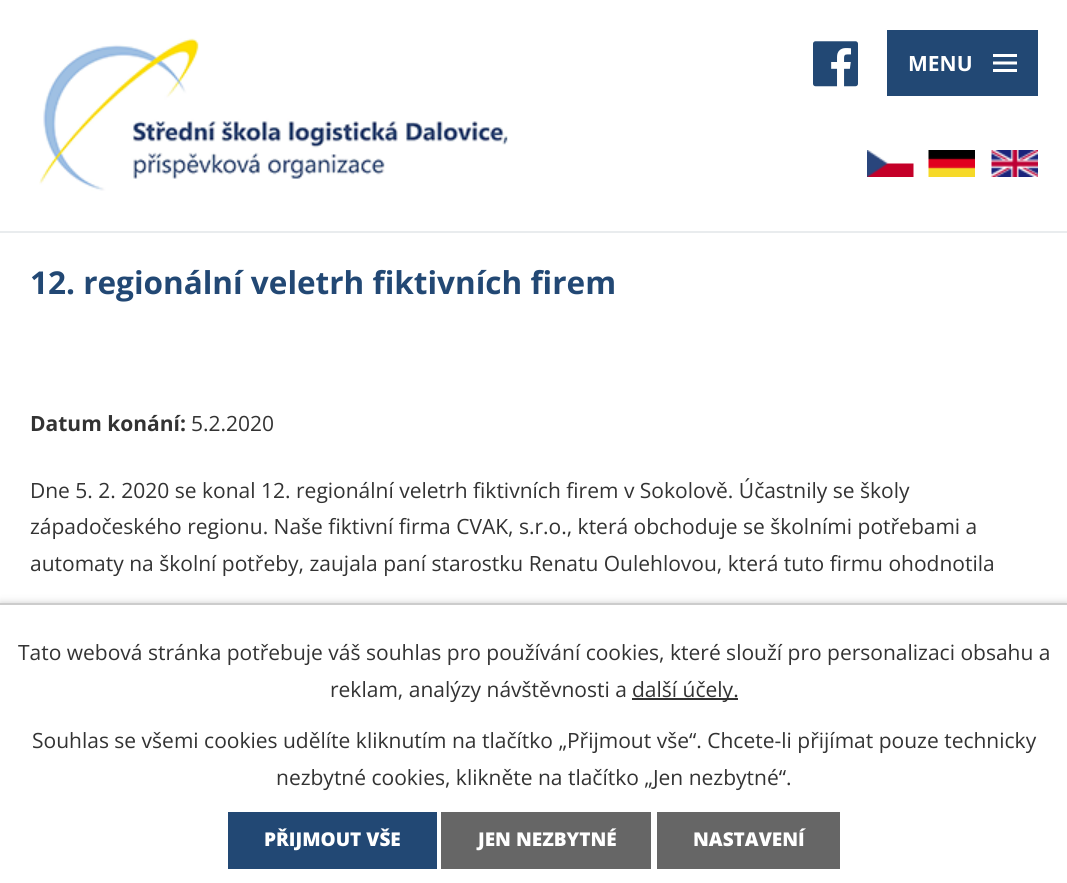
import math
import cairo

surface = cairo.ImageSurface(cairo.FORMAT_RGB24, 1067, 883)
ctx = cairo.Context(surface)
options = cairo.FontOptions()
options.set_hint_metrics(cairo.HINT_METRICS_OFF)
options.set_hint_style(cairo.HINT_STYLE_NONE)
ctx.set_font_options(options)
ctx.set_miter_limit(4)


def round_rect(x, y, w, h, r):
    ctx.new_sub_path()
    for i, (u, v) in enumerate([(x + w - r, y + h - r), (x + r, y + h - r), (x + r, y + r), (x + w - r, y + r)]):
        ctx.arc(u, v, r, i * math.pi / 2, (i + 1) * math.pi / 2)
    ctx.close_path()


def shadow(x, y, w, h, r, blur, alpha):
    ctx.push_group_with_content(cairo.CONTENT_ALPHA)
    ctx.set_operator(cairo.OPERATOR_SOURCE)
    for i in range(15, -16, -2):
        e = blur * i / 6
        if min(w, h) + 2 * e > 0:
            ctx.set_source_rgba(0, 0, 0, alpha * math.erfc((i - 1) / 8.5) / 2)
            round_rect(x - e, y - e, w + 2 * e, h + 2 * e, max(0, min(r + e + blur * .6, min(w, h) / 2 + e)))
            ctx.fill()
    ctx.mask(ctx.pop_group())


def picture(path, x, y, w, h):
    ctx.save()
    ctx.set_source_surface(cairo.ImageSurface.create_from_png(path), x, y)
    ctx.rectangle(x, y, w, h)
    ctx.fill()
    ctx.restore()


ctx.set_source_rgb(1, 1, 1)
ctx.paint()
ctx.set_source_rgb(0.914, 0.922, 0.933)
ctx.rectangle(0, 231, 1067, 2)
ctx.fill()
picture("img1.png", 39, 38, 469, 153)
picture("img2.png", 867, 150, 47, 27)
picture("img3.png", 928, 150, 47, 27)
picture("img4.png", 991, 150, 47, 27)
picture("img5.png", 813, 41, 45, 46)
ctx.set_source_rgb(0.133, 0.282, 0.455)
ctx.rectangle(887, 30, 151, 66)
ctx.fill()
ctx.select_font_face("Open Sans", cairo.FONT_SLANT_NORMAL, cairo.FONT_WEIGHT_BOLD)
ctx.set_font_size(21)
ctx.set_source_rgb(1, 1, 1)
ctx.move_to(908, 71)
ctx.show_text("MENU")
picture("img6.png", 993, 54, 24, 18)
ctx.set_font_size(31.5)
ctx.set_source_rgb(0.133, 0.282, 0.455)
ctx.move_to(30, 294)
ctx.show_text("12. regionální veletrh fiktivních firem")
ctx.set_font_size(21)
ctx.set_source_rgb(0.2, 0.2, 0.2)
ctx.move_to(30, 431)
ctx.show_text("Datum konání:")
ctx.select_font_face("Open Sans")
ctx.move_to(191, 431)
ctx.show_text("5.2.2020")
ctx.move_to(30, 498)
ctx.show_text("Dne 5. 2. 2020 se konal 12. regionální veletrh fiktivních firem v Sokolově. Účastnily se školy")
ctx.move_to(30, 534)
ctx.show_text("západočeského regionu. Naše fiktivní firma CVAK, s.r.o., která obchoduje se školními potřebami a")
ctx.move_to(30, 571)
ctx.show_text("automaty na školní potřeby, zaujala paní starostku Renatu Oulehlovou, která tuto firmu ohodnotila")
ctx.set_source_rgb(0, 0, 0)
shadow(0, 603, 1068, 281, 0, 4, 0.2)
ctx.set_source_rgb(1, 1, 1)
ctx.rectangle(0, 605, 1067, 278)
ctx.fill()
ctx.set_source_rgb(0.8, 0.8, 0.8)
ctx.rectangle(0, 603, 1067, 2)
ctx.fill()
ctx.set_source_rgb(0.2, 0.2, 0.2)
ctx.move_to(18, 660)
ctx.show_text("Tato webová stránka potřebuje váš souhlas pro používání cookies, které slouží pro personalizaci obsahu a")
ctx.move_to(330, 697)
ctx.show_text("reklam, analýzy návštěvnosti a")
ctx.rectangle(632, 698, 106, 2)
ctx.fill()
ctx.move_to(632, 697)
ctx.show_text("další účely.")
ctx.move_to(32, 748)
ctx.show_text("Souhlas se všemi cookies udělíte kliknutím na tlačítko „Přijmout vše“. Chcete-li přijímat pouze technicky")
ctx.move_to(276, 785)
ctx.show_text("nezbytné cookies, klikněte na tlačítko „Jen nezbytné“.")
ctx.set_source_rgb(0.133, 0.282, 0.455)
ctx.rectangle(228, 812, 209, 57)
ctx.fill()
ctx.select_font_face("Open Sans ExtraBold")
ctx.set_font_size(19)
ctx.set_source_rgb(1, 1, 1)
ctx.move_to(264, 846)
ctx.show_text("PŘIJMOUT VŠE")
ctx.set_source_rgb(0.4, 0.4, 0.4)
ctx.rectangle(441, 812, 210, 57)
ctx.fill()
ctx.set_source_rgb(1, 1, 1)
ctx.move_to(478, 846)
ctx.show_text("JEN NEZBYTNÉ")
ctx.set_source_rgb(0.4, 0.4, 0.4)
ctx.rectangle(657, 812, 183, 57)
ctx.fill()
ctx.set_source_rgb(1, 1, 1)
ctx.move_to(693, 846)
ctx.show_text("NASTAVENÍ")
surface.write_to_png("page.png")
